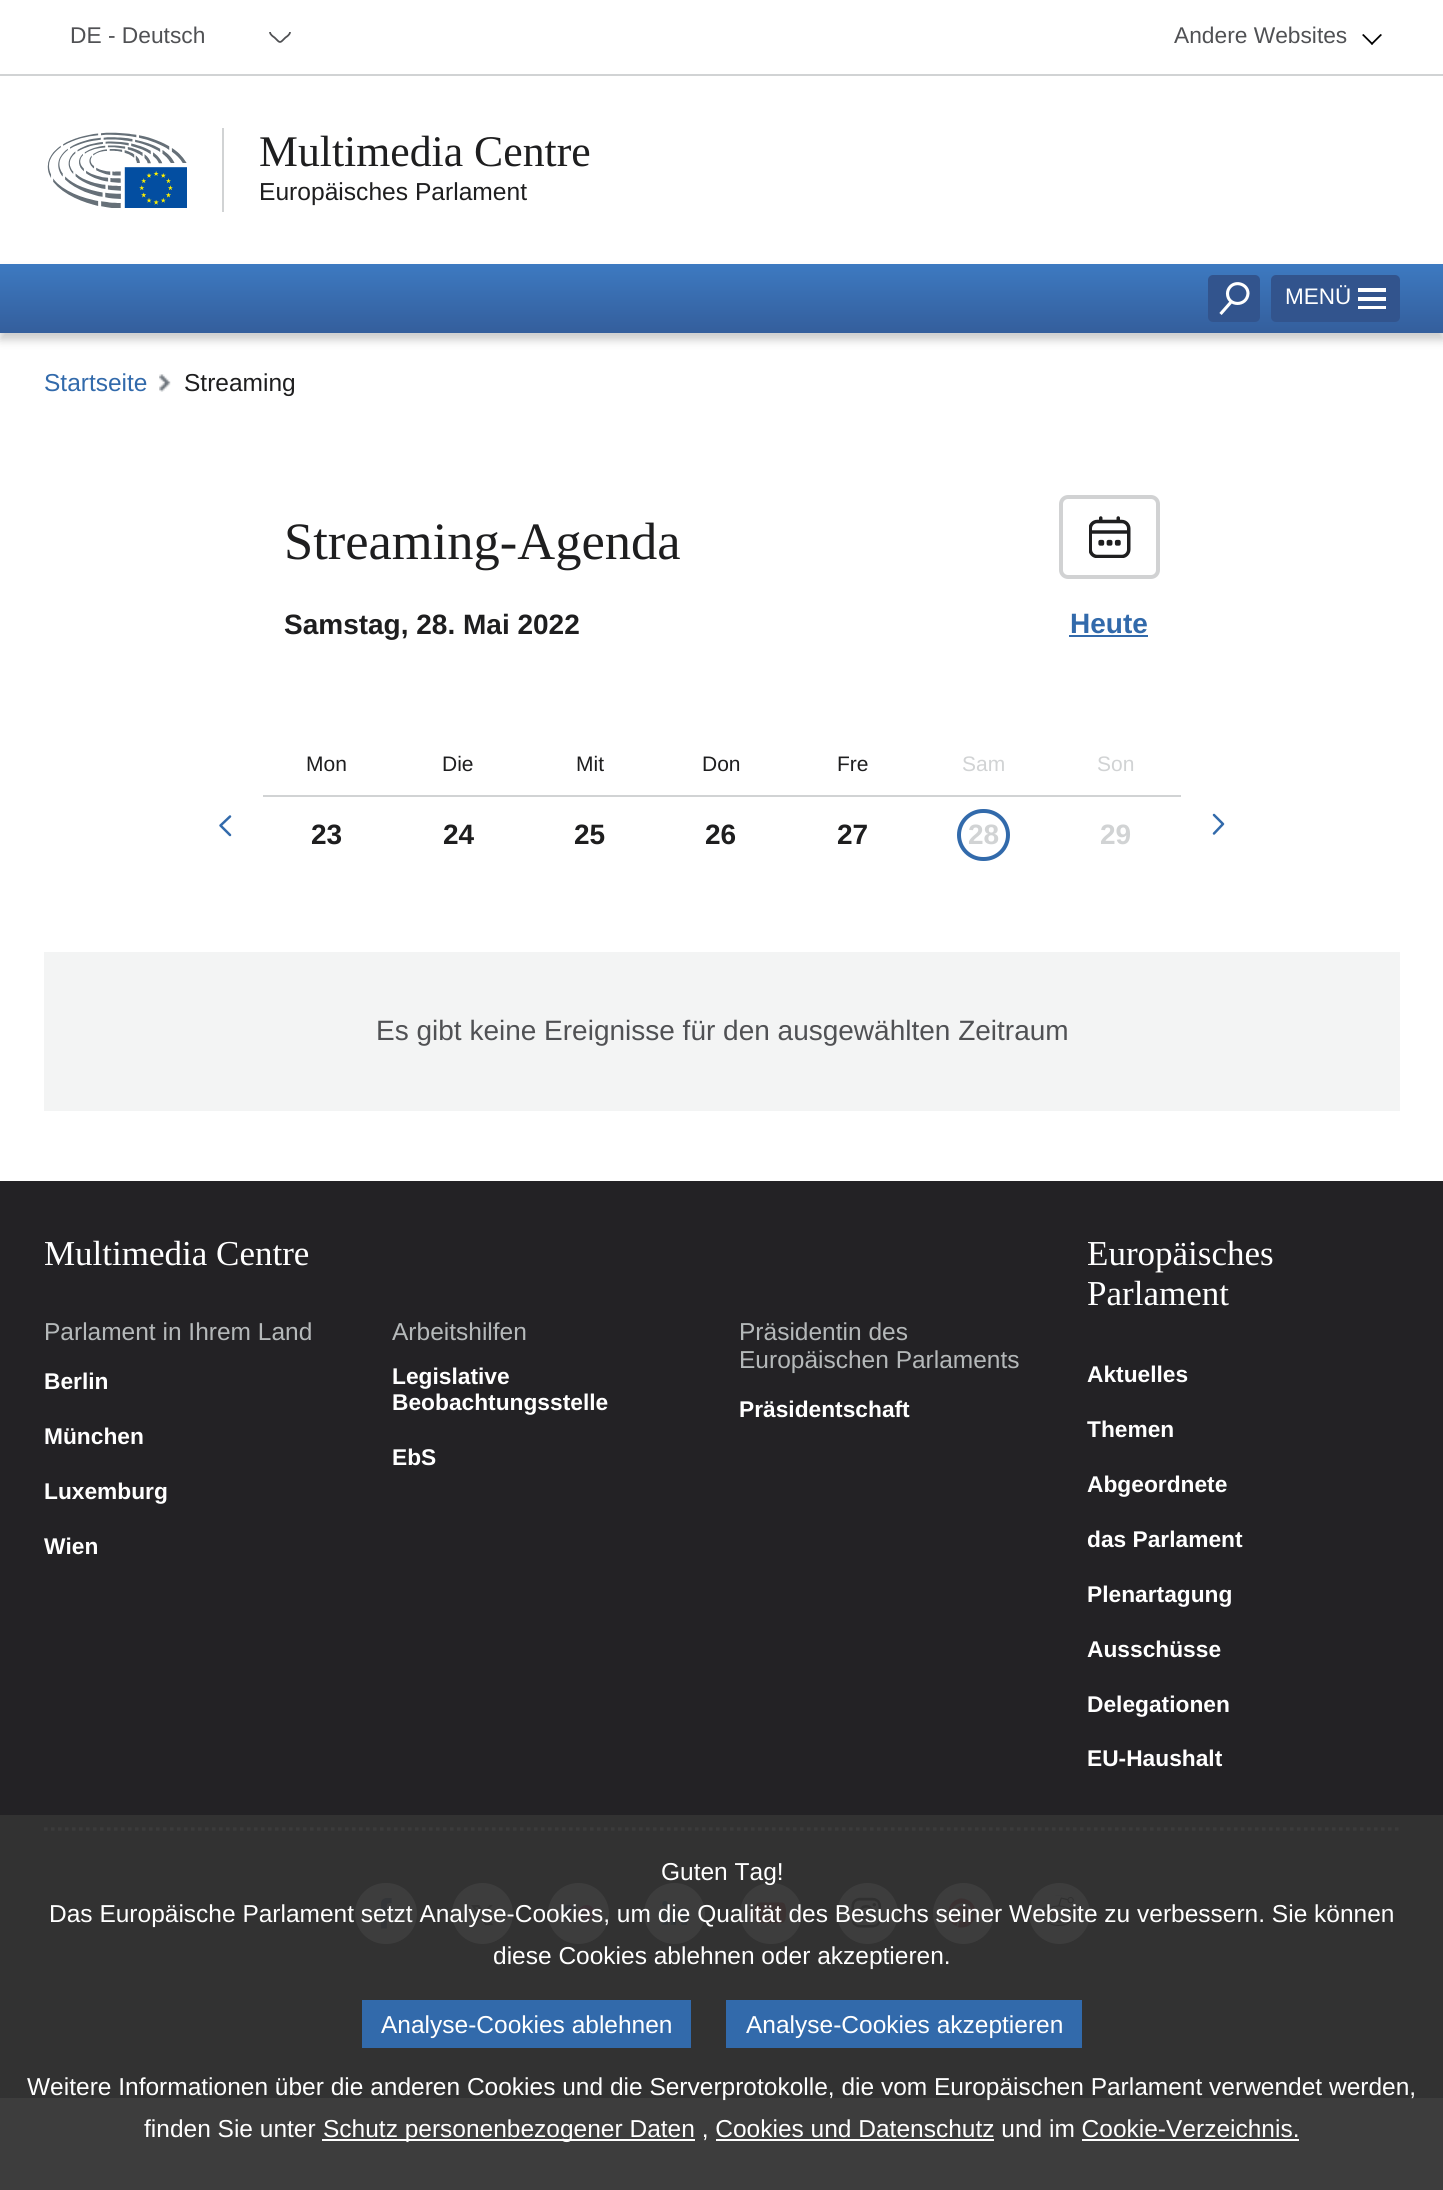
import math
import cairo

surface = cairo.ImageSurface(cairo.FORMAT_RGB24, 1443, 2190)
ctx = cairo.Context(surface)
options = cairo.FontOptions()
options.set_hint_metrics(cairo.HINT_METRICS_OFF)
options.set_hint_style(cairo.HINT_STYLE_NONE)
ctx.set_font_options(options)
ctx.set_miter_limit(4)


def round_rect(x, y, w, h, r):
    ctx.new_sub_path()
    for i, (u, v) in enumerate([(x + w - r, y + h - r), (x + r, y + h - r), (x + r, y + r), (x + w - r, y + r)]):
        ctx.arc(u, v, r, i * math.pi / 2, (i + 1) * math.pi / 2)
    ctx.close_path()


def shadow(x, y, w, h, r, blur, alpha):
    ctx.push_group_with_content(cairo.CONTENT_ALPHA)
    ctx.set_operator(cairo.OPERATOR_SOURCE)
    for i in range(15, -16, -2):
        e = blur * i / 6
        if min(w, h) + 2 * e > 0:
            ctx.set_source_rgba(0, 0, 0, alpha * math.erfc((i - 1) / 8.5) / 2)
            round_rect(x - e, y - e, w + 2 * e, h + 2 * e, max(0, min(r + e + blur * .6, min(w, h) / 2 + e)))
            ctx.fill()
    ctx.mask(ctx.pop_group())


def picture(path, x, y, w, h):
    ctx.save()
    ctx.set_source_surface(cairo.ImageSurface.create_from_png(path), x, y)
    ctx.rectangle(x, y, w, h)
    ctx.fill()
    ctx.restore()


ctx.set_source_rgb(1, 1, 1)
ctx.paint()
ctx.set_source_rgb(0.239, 0.239, 0.239)
ctx.rectangle(0, 2098, 1443, 92)
ctx.fill()
ctx.set_source_rgb(0.82, 0.827, 0.831)
ctx.rectangle(0, 74, 1443, 2)
ctx.fill()
ctx.select_font_face("Liberation Sans")
ctx.set_font_size(22.75)
ctx.set_source_rgb(0.314, 0.318, 0.329)
ctx.move_to(70, 43)
ctx.show_text("DE - Deutsch")
ctx.new_path()
ctx.move_to(290, 32)
ctx.curve_to(290, 34.5, 287, 36.5, 285.5, 37.5)
ctx.curve_to(279.5, 43.5, 280.5, 43.5, 274.5, 37.5)
ctx.curve_to(273, 36.5, 270, 34.5, 270, 32)
ctx.set_line_width(1.8)
ctx.stroke()
ctx.move_to(1174, 43)
ctx.show_text("Andere Websites")
ctx.set_source_rgb(0, 0, 0)
ctx.new_path()
ctx.move_to(1380.5, 34)
ctx.line_to(1382, 35)
ctx.line_to(1372, 45)
ctx.line_to(1371, 43.5)
ctx.close_path()
ctx.fill()
ctx.new_path()
ctx.move_to(1363.5, 34)
ctx.line_to(1373, 43.5)
ctx.line_to(1372, 45)
ctx.line_to(1362, 35)
ctx.close_path()
ctx.fill()
picture("img1.png", 47, 132, 140, 76)
ctx.set_source_rgb(0.82, 0.827, 0.831)
ctx.rectangle(222, 128, 2, 84)
ctx.fill()
ctx.select_font_face("Liberation Serif")
ctx.set_font_size(43.75)
ctx.set_source_rgb(0.118, 0.118, 0.122)
ctx.move_to(259, 166)
ctx.show_text("Multimedia Centre")
ctx.select_font_face("Liberation Sans")
ctx.set_font_size(24.6)
ctx.move_to(259, 200)
ctx.show_text("Europäisches Parlament")
ctx.set_source_rgb(0, 0, 0)
shadow(0, 271, 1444, 69, 0, 4.5, 0.2)
gradient = cairo.LinearGradient(722, 264, 722, 333)
gradient.add_color_stop_rgba(0, 0.239, 0.478, 0.757, 1)
gradient.add_color_stop_rgba(1, 0.204, 0.369, 0.612, 1)
ctx.set_source(gradient)
ctx.rectangle(0, 264, 1443, 69)
ctx.fill()
ctx.set_source_rgb(0.196, 0.329, 0.553)
round_rect(1208, 275, 52, 47, 5)
ctx.fill()
ctx.new_path()
ctx.move_to(1227.5, 293.5)
ctx.curve_to(1227.5, 306.5, 1247, 307, 1248, 293.5)
ctx.curve_to(1248, 284.5, 1236.5, 280.5, 1230.5, 286.5)
ctx.curve_to(1228.5, 288.5, 1227.5, 291, 1227.5, 293.5)
ctx.close_path()
ctx.move_to(1231.5, 301.5)
ctx.line_to(1220.5, 314)
ctx.set_source_rgb(1, 1, 1)
ctx.set_line_width(3.1)
ctx.stroke()
ctx.set_source_rgb(0.196, 0.329, 0.553)
round_rect(1271, 275, 129, 47, 5)
ctx.fill()
ctx.set_font_size(22.5)
ctx.set_source_rgb(1, 1, 1)
ctx.move_to(1285, 304)
ctx.show_text("MENÜ")
ctx.rectangle(1358, 288, 28, 4)
ctx.fill()
ctx.rectangle(1358, 297, 28, 4)
ctx.fill()
ctx.rectangle(1358, 306, 28, 3)
ctx.fill()
ctx.set_font_size(24.5)
ctx.set_source_rgb(0.196, 0.416, 0.671)
ctx.move_to(44, 391)
ctx.show_text("Startseite")
picture("img2.png", 159, 374, 12, 18)
ctx.set_source_rgb(0.118, 0.118, 0.122)
ctx.move_to(184, 391)
ctx.show_text("Streaming")
ctx.select_font_face("Liberation Serif")
ctx.set_font_size(52.5)
ctx.move_to(284, 559)
ctx.show_text("Streaming-Agenda")
ctx.select_font_face("Liberation Sans", cairo.FONT_SLANT_NORMAL, cairo.FONT_WEIGHT_BOLD)
ctx.set_font_size(28)
ctx.move_to(284, 634)
ctx.show_text("Samstag, 28. Mai 2022")
round_rect(1061, 497, 97, 80, 7)
ctx.set_source_rgb(0.82, 0.824, 0.827)
ctx.set_line_width(4)
ctx.stroke()
picture("img3.png", 1089, 516, 42, 42)
ctx.set_source_rgb(0.196, 0.416, 0.671)
ctx.move_to(1070, 633)
ctx.show_text("Heute")
ctx.rectangle(1069, 635, 79, 2)
ctx.fill()
ctx.new_path()
ctx.move_to(230, 835)
ctx.line_to(220.5, 825.5)
ctx.close_path()
ctx.move_to(230, 816.5)
ctx.line_to(220.5, 825.5)
ctx.close_path()
ctx.set_line_width(2.5)
ctx.set_line_cap(cairo.LINE_CAP_ROUND)
ctx.set_line_join(cairo.LINE_JOIN_ROUND)
ctx.stroke()
ctx.select_font_face("Liberation Sans")
ctx.set_font_size(21)
ctx.set_source_rgb(0.118, 0.118, 0.122)
ctx.move_to(306, 771)
ctx.show_text("Mon")
ctx.move_to(442, 771)
ctx.show_text("Die")
ctx.move_to(576, 771)
ctx.show_text("Mit")
ctx.move_to(702, 771)
ctx.show_text("Don")
ctx.move_to(837, 771)
ctx.show_text("Fre")
ctx.set_source_rgb(0.82, 0.827, 0.831)
ctx.move_to(962, 771)
ctx.show_text("Sam")
ctx.move_to(1097, 771)
ctx.show_text("Son")
ctx.rectangle(263, 795, 918, 2)
ctx.fill()
ctx.select_font_face("Liberation Sans", cairo.FONT_SLANT_NORMAL, cairo.FONT_WEIGHT_BOLD)
ctx.set_font_size(28)
ctx.set_source_rgb(0.118, 0.118, 0.122)
ctx.move_to(311, 844)
ctx.show_text("23")
ctx.move_to(443, 844)
ctx.show_text("24")
ctx.move_to(574, 844)
ctx.show_text("25")
ctx.move_to(705, 844)
ctx.show_text("26")
ctx.move_to(837, 844)
ctx.show_text("27")
round_rect(959, 811, 49, 48, 24)
ctx.set_source_rgb(0.196, 0.416, 0.671)
ctx.set_line_width(4)
ctx.set_line_cap(cairo.LINE_CAP_BUTT)
ctx.set_line_join(cairo.LINE_JOIN_MITER)
ctx.stroke()
ctx.set_source_rgb(0.82, 0.827, 0.831)
ctx.move_to(968, 844)
ctx.show_text("28")
ctx.move_to(1100, 844)
ctx.show_text("29")
ctx.new_path()
ctx.move_to(1214, 815)
ctx.line_to(1223, 824)
ctx.close_path()
ctx.move_to(1214, 833.5)
ctx.line_to(1223, 824)
ctx.close_path()
ctx.set_source_rgb(0.196, 0.416, 0.671)
ctx.set_line_width(2.5)
ctx.set_line_cap(cairo.LINE_CAP_ROUND)
ctx.set_line_join(cairo.LINE_JOIN_ROUND)
ctx.stroke()
ctx.set_source_rgb(0.953, 0.957, 0.957)
ctx.rectangle(44, 952, 1356, 159)
ctx.fill()
ctx.select_font_face("Liberation Sans")
ctx.set_source_rgb(0.314, 0.318, 0.329)
ctx.move_to(376, 1040)
ctx.show_text("Es gibt keine Ereignisse für den ausgewählten Zeitraum")
ctx.set_source_rgb(0.137, 0.133, 0.145)
ctx.rectangle(0, 1181, 1443, 634)
ctx.fill()
ctx.set_source_rgb(0.196, 0.196, 0.196)
ctx.rectangle(0, 1815, 1443, 283)
ctx.fill()
ctx.new_path()
ctx.move_to(44, 1829)
ctx.line_to(1400, 1829)
ctx.set_source_rgb(0.231, 0.231, 0.231)
ctx.set_line_width(3.5)
ctx.set_line_cap(cairo.LINE_CAP_BUTT)
ctx.set_line_join(cairo.LINE_JOIN_MITER)
ctx.set_dash([3.5, 3.5])
ctx.stroke()
ctx.select_font_face("Liberation Serif")
ctx.set_font_size(35)
ctx.set_source_rgb(1, 1, 1)
ctx.move_to(44, 1265)
ctx.show_text("Multimedia Centre")
ctx.select_font_face("Liberation Sans")
ctx.set_font_size(24.5)
ctx.set_source_rgb(0.71, 0.725, 0.729)
ctx.move_to(44, 1340)
ctx.show_text("Parlament in Ihrem Land")
ctx.select_font_face("Liberation Sans", cairo.FONT_SLANT_NORMAL, cairo.FONT_WEIGHT_BOLD)
ctx.set_font_size(22.75)
ctx.set_source_rgb(1, 1, 1)
ctx.move_to(44, 1389)
ctx.show_text("Berlin")
ctx.move_to(44, 1444)
ctx.show_text("München")
ctx.move_to(44, 1499)
ctx.show_text("Luxemburg")
ctx.move_to(44, 1554)
ctx.show_text("Wien")
ctx.select_font_face("Liberation Sans")
ctx.set_font_size(24.5)
ctx.set_source_rgb(0.71, 0.725, 0.729)
ctx.move_to(392, 1340)
ctx.show_text("Arbeitshilfen")
ctx.select_font_face("Liberation Sans", cairo.FONT_SLANT_NORMAL, cairo.FONT_WEIGHT_BOLD)
ctx.set_font_size(22.75)
ctx.set_source_rgb(1, 1, 1)
ctx.move_to(392, 1384)
ctx.show_text("Legislative")
ctx.move_to(392, 1410)
ctx.show_text("Beobachtungsstelle")
ctx.move_to(392, 1465)
ctx.show_text("EbS")
ctx.select_font_face("Liberation Sans")
ctx.set_font_size(24.5)
ctx.set_source_rgb(0.71, 0.725, 0.729)
ctx.move_to(739, 1340)
ctx.show_text("Präsidentin des")
ctx.move_to(739, 1368)
ctx.show_text("Europäischen Parlaments")
ctx.select_font_face("Liberation Sans", cairo.FONT_SLANT_NORMAL, cairo.FONT_WEIGHT_BOLD)
ctx.set_font_size(22.75)
ctx.set_source_rgb(1, 1, 1)
ctx.move_to(739, 1417)
ctx.show_text("Präsidentschaft")
ctx.select_font_face("Liberation Serif")
ctx.set_font_size(35)
ctx.move_to(1087, 1265)
ctx.show_text("Europäisches")
ctx.move_to(1087, 1305)
ctx.show_text("Parlament")
ctx.select_font_face("Liberation Sans", cairo.FONT_SLANT_NORMAL, cairo.FONT_WEIGHT_BOLD)
ctx.set_font_size(22.75)
ctx.move_to(1087, 1382)
ctx.show_text("Aktuelles")
ctx.move_to(1087, 1437)
ctx.show_text("Themen")
ctx.move_to(1087, 1492)
ctx.show_text("Abgeordnete")
ctx.move_to(1087, 1547)
ctx.show_text("das Parlament")
ctx.move_to(1087, 1602)
ctx.show_text("Plenartagung")
ctx.move_to(1087, 1657)
ctx.show_text("Ausschüsse")
ctx.move_to(1087, 1712)
ctx.show_text("Delegationen")
ctx.move_to(1087, 1766)
ctx.show_text("EU-Haushalt")
ctx.set_source_rgb(0.239, 0.239, 0.239)
round_rect(355, 1883, 62, 61, 30.5)
ctx.fill()
picture("img4.png", 378, 1898, 14, 31)
ctx.arc(482.5, 1913.5, 30.5, 0, 2 * math.pi)
ctx.fill()
picture("img5.png", 470, 1905, 24, 21)
ctx.arc(578.5, 1913.5, 30.5, 0, 2 * math.pi)
ctx.fill()
picture("img6.png", 560, 1905, 35, 16)
ctx.arc(674.5, 1913.5, 30.5, 0, 2 * math.pi)
ctx.fill()
picture("img7.png", 662, 1901, 26, 24)
round_rect(740, 1883, 62, 61, 30.5)
ctx.fill()
picture("img8.png", 754, 1902, 33, 22)
ctx.arc(867.5, 1913.5, 30.5, 0, 2 * math.pi)
ctx.fill()
picture("img9.png", 851, 1897, 31, 31)
ctx.arc(963.5, 1913.5, 30.5, 0, 2 * math.pi)
ctx.fill()
picture("img10.png", 948, 1898, 28, 30)
ctx.arc(1059.5, 1913.5, 30.5, 0, 2 * math.pi)
ctx.fill()
picture("img11.png", 1040, 1895, 37, 31)
ctx.select_font_face("Liberation Sans")
ctx.set_font_size(24.5)
ctx.set_source_rgb(1, 1, 1)
ctx.move_to(661, 1880)
ctx.show_text("Guten Tag!")
ctx.move_to(49, 1922)
ctx.show_text("Das Europäische Parlament setzt Analyse-Cookies, um die Qualität des Besuchs seiner Website zu verbessern. Sie können")
ctx.move_to(493, 1964)
ctx.show_text("diese Cookies ablehnen oder akzeptieren.")
ctx.set_source_rgb(0.196, 0.416, 0.671)
ctx.rectangle(362, 2000, 329, 48)
ctx.fill()
ctx.set_source_rgb(1, 1, 1)
ctx.move_to(381, 2033)
ctx.show_text("Analyse-Cookies ablehnen")
ctx.set_source_rgb(0.196, 0.416, 0.671)
ctx.rectangle(726, 2000, 356, 48)
ctx.fill()
ctx.set_source_rgb(1, 1, 1)
ctx.move_to(746, 2033)
ctx.show_text("Analyse-Cookies akzeptieren")
ctx.move_to(27, 2095)
ctx.show_text("Weitere Informationen über die anderen Cookies und die Serverprotokolle, die vom Europäischen Parlament verwendet werden,")
ctx.move_to(144, 2137)
ctx.show_text("finden Sie unter")
ctx.rectangle(322, 2139, 373, 2)
ctx.fill()
ctx.move_to(323, 2137)
ctx.show_text("Schutz personenbezogener Daten , Cookies und Datenschutz und im Cookie-Verzeichnis.")
ctx.rectangle(716, 2139, 278, 2)
ctx.fill()
ctx.rectangle(1082, 2139, 217, 2)
ctx.fill()
surface.write_to_png("page.png")
